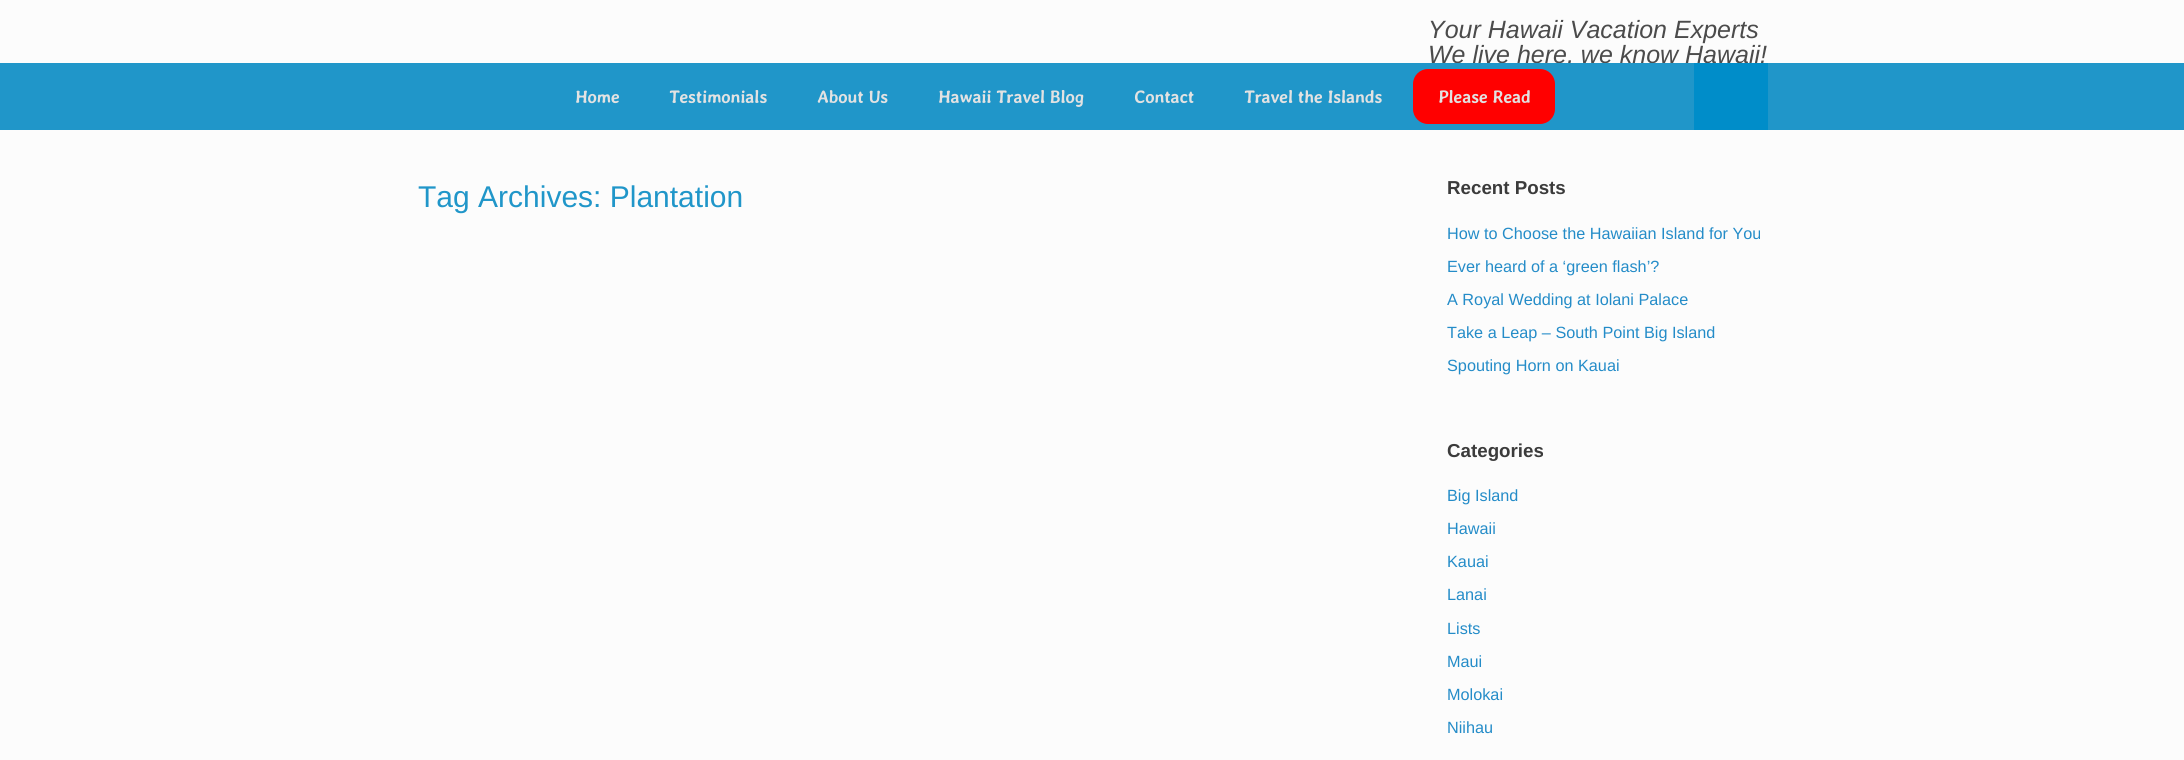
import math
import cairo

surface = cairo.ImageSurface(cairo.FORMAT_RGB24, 2184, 760)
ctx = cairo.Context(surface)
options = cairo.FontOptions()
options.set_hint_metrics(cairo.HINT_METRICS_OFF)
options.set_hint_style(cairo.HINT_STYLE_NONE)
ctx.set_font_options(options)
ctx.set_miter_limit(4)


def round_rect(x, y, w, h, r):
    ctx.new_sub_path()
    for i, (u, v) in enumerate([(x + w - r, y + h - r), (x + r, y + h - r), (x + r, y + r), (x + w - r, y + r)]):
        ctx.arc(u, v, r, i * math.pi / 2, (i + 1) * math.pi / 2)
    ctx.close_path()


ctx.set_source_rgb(0.988, 0.988, 0.988)
ctx.paint()
ctx.select_font_face("Liberation Sans", cairo.FONT_SLANT_ITALIC)
ctx.set_font_size(25)
ctx.set_source_rgb(0.294, 0.294, 0.294)
ctx.move_to(1428, 38)
ctx.show_text("Your Hawaii Vacation Experts")
ctx.move_to(1428, 63)
ctx.show_text("We live here, we know Hawaii!")
ctx.set_source_rgb(0.125, 0.588, 0.788)
ctx.rectangle(0, 63, 2184, 67)
ctx.fill()
ctx.select_font_face("Averia Gruesa Libre", cairo.FONT_SLANT_NORMAL, cairo.FONT_WEIGHT_BOLD)
ctx.set_font_size(17.5)
ctx.set_source_rgb(0.886, 0.886, 0.886)
ctx.move_to(575, 103)
ctx.show_text("Home")
ctx.move_to(669, 103)
ctx.show_text("Testimonials")
ctx.move_to(817, 103)
ctx.show_text("About Us")
ctx.move_to(938, 103)
ctx.show_text("Hawaii Travel Blog")
ctx.move_to(1134, 103)
ctx.show_text("Contact")
ctx.move_to(1244, 103)
ctx.show_text("Travel the Islands")
ctx.set_source_rgb(1, 0, 0)
round_rect(1413, 69, 142, 55, 15)
ctx.fill()
ctx.set_source_rgb(0.886, 0.886, 0.886)
ctx.move_to(1438, 103)
ctx.show_text("Please Read")
ctx.set_source_rgb(0, 0.553, 0.788)
ctx.rectangle(1694, 63, 74, 67)
ctx.fill()
ctx.select_font_face("Liberation Sans")
ctx.set_font_size(30)
ctx.set_source_rgb(0.125, 0.588, 0.788)
ctx.move_to(418, 207)
ctx.show_text("Tag Archives: Plantation")
ctx.select_font_face("Liberation Sans", cairo.FONT_SLANT_NORMAL, cairo.FONT_WEIGHT_BOLD)
ctx.set_font_size(18.75)
ctx.set_source_rgb(0.231, 0.231, 0.231)
ctx.move_to(1447, 194)
ctx.show_text("Recent Posts")
ctx.select_font_face("Liberation Sans")
ctx.set_font_size(16.25)
ctx.set_source_rgb(0.141, 0.549, 0.784)
ctx.move_to(1447, 239)
ctx.show_text("How to Choose the Hawaiian Island for You")
ctx.move_to(1447, 272)
ctx.show_text("Ever heard of a ‘green flash’?")
ctx.move_to(1447, 305)
ctx.show_text("A Royal Wedding at Iolani Palace")
ctx.move_to(1447, 338)
ctx.show_text("Take a Leap – South Point Big Island")
ctx.move_to(1447, 371)
ctx.show_text("Spouting Horn on Kauai")
ctx.select_font_face("Liberation Sans", cairo.FONT_SLANT_NORMAL, cairo.FONT_WEIGHT_BOLD)
ctx.set_font_size(18.75)
ctx.set_source_rgb(0.231, 0.231, 0.231)
ctx.move_to(1447, 457)
ctx.show_text("Categories")
ctx.select_font_face("Liberation Sans")
ctx.set_font_size(16.25)
ctx.set_source_rgb(0.141, 0.549, 0.784)
ctx.move_to(1447, 501)
ctx.show_text("Big Island")
ctx.move_to(1447, 534)
ctx.show_text("Hawaii")
ctx.move_to(1447, 567)
ctx.show_text("Kauai")
ctx.move_to(1447, 600)
ctx.show_text("Lanai")
ctx.move_to(1447, 634)
ctx.show_text("Lists")
ctx.move_to(1447, 667)
ctx.show_text("Maui")
ctx.move_to(1447, 700)
ctx.show_text("Molokai")
ctx.move_to(1447, 733)
ctx.show_text("Niihau")
surface.write_to_png("page.png")
